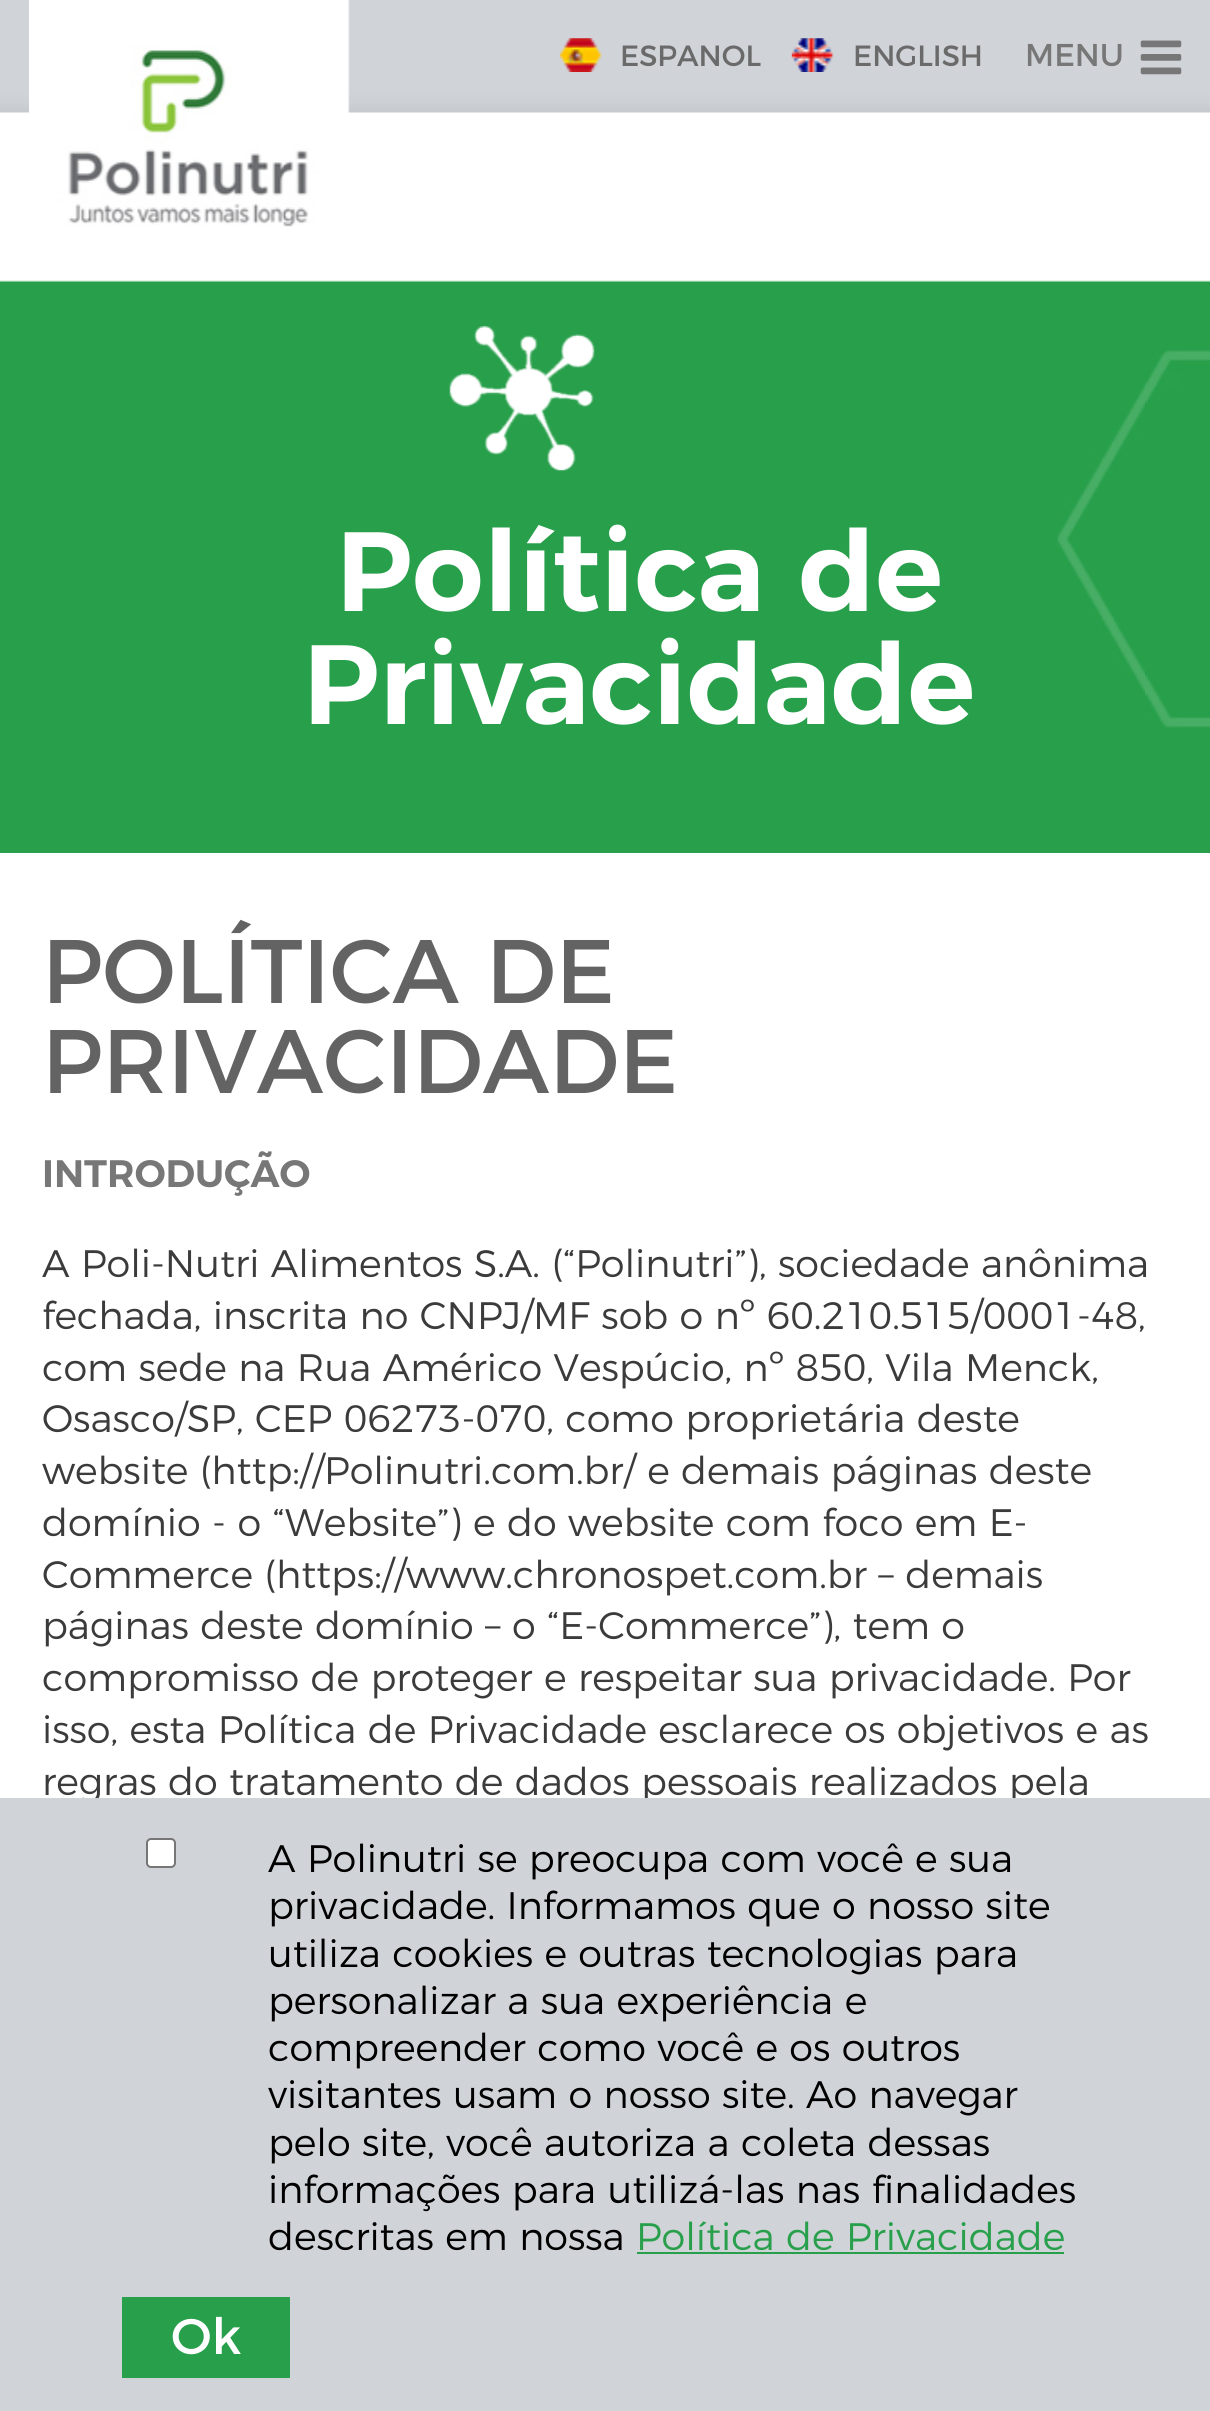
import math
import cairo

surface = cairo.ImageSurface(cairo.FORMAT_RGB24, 1210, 2411)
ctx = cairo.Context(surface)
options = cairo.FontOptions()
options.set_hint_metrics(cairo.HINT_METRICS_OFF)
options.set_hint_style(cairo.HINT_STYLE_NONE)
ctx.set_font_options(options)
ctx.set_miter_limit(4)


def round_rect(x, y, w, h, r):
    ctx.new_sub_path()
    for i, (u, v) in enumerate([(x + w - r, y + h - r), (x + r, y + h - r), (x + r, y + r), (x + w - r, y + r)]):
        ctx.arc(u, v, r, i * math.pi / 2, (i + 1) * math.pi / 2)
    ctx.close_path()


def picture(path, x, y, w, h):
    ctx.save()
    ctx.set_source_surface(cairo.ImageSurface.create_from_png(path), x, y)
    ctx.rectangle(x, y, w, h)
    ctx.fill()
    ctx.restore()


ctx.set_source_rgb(1, 1, 1)
ctx.paint()
picture("img1.png", 0, 0, 1210, 113)
picture("img2.png", 29, 0, 321, 227)
picture("img3.png", 560, 38, 42, 34)
ctx.select_font_face("Montserrat")
ctx.set_font_size(29.25)
ctx.set_source_rgb(0.416, 0.416, 0.416)
ctx.move_to(620, 66)
ctx.show_text("ESPANOL")
picture("img4.png", 791, 38, 43, 34)
ctx.move_to(853, 66)
ctx.show_text("ENGLISH")
ctx.set_font_size(31.5)
ctx.set_source_rgb(0.467, 0.467, 0.467)
ctx.move_to(1025, 66)
ctx.show_text("MENU")
picture("img5.png", 1140, 40, 42, 35)
picture("img6.png", 0, 280, 1210, 573)
picture("img7.png", 449, 326, 146, 145)
ctx.select_font_face("Montserrat SemiBold")
ctx.set_font_size(112.5)
ctx.set_source_rgb(1, 1, 1)
ctx.move_to(336, 611)
ctx.show_text("Política de")
ctx.move_to(303, 724)
ctx.show_text("Privacidade")
ctx.select_font_face("Montserrat")
ctx.set_font_size(90)
ctx.set_source_rgb(0.388, 0.388, 0.388)
ctx.move_to(42, 1003)
ctx.show_text("POLÍTICA DE")
ctx.move_to(42, 1093)
ctx.show_text("PRIVACIDADE")
ctx.select_font_face("Montserrat SemiBold")
ctx.set_font_size(38.25)
ctx.set_source_rgb(0.467, 0.467, 0.467)
ctx.move_to(42, 1187)
ctx.show_text("INTRODUÇÃO")
ctx.select_font_face("Montserrat Light")
ctx.set_source_rgb(0.231, 0.231, 0.231)
ctx.move_to(42, 1277)
ctx.show_text("A Poli-Nutri Alimentos S.A. (“Polinutri”), sociedade anônima")
ctx.move_to(42, 1329)
ctx.show_text("fechada, inscrita no CNPJ/MF sob o nº 60.210.515/0001-48,")
ctx.move_to(42, 1381)
ctx.show_text("com sede na Rua Américo Vespúcio, nº 850, Vila Menck,")
ctx.move_to(42, 1432)
ctx.show_text("Osasco/SP, CEP 06273-070, como proprietária deste")
ctx.move_to(42, 1484)
ctx.show_text("website (http://Polinutri.com.br/ e demais páginas deste")
ctx.move_to(42, 1536)
ctx.show_text("domínio - o “Website”) e do website com foco em E-")
ctx.move_to(42, 1588)
ctx.show_text("Commerce (https://www.chronospet.com.br – demais")
ctx.move_to(42, 1639)
ctx.show_text("páginas deste domínio – o “E-Commerce”), tem o")
ctx.move_to(42, 1691)
ctx.show_text("compromisso de proteger e respeitar sua privacidade. Por")
ctx.move_to(42, 1743)
ctx.show_text("isso, esta Política de Privacidade esclarece os objetivos e as")
ctx.move_to(42, 1795)
ctx.show_text("regras do tratamento de dados pessoais realizados pela")
ctx.set_source_rgb(0.816, 0.827, 0.847)
ctx.rectangle(0, 1798, 1210, 613)
ctx.fill()
ctx.set_source_rgb(1, 1, 1)
round_rect(147, 1839, 28, 28, 4)
ctx.fill_preserve()
ctx.set_source_rgb(0.463, 0.463, 0.463)
ctx.stroke()
ctx.set_source_rgb(0, 0, 0)
ctx.move_to(268, 1872)
ctx.show_text("A Polinutri se preocupa com você e sua")
ctx.move_to(268, 1919)
ctx.show_text("privacidade. Informamos que o nosso site")
ctx.move_to(268, 1967)
ctx.show_text("utiliza cookies e outras tecnologias para")
ctx.move_to(268, 2014)
ctx.show_text("personalizar a sua experiência e")
ctx.move_to(268, 2061)
ctx.show_text("compreender como você e os outros")
ctx.move_to(268, 2108)
ctx.show_text("visitantes usam o nosso site. Ao navegar")
ctx.move_to(268, 2156)
ctx.show_text("pelo site, você autoriza a coleta dessas")
ctx.move_to(268, 2203)
ctx.show_text("informações para utilizá-las nas finalidades")
ctx.move_to(268, 2250)
ctx.show_text("descritas em nossa")
ctx.set_source_rgb(0.157, 0.624, 0.294)
ctx.move_to(636, 2250)
ctx.show_text("Política de Privacidade")
ctx.rectangle(637, 2252, 427, 2)
ctx.fill()
ctx.rectangle(122, 2297, 168, 81)
ctx.fill()
ctx.select_font_face("Montserrat")
ctx.set_font_size(50)
ctx.set_source_rgb(1, 1, 1)
ctx.move_to(171, 2354)
ctx.show_text("Ok")
surface.write_to_png("page.png")
